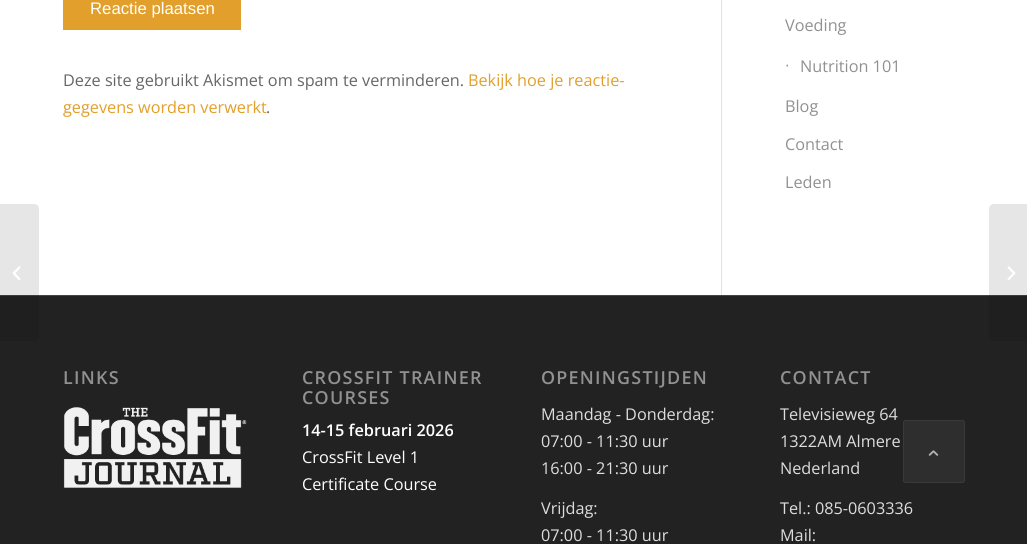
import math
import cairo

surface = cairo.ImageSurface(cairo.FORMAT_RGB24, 1027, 544)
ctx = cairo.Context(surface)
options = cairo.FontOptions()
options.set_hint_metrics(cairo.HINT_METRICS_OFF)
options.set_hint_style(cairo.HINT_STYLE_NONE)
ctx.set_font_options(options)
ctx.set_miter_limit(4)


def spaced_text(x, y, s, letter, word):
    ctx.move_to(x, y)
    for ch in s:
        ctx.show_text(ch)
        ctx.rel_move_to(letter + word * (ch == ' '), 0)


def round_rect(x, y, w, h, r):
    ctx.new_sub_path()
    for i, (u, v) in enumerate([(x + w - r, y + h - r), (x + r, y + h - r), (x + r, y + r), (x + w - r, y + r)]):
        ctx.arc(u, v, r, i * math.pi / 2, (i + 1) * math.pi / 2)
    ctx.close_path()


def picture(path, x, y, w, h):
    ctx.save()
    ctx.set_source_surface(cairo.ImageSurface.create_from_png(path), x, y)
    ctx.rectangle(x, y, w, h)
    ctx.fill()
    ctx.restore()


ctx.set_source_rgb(1, 1, 1)
ctx.paint()
ctx.set_source_rgb(0.133, 0.133, 0.133)
ctx.rectangle(0, 296, 1027, 248)
ctx.fill()
ctx.set_source_rgb(0.267, 0.267, 0.267)
ctx.rectangle(0, 295, 1027, 1)
ctx.fill()
ctx.set_source_rgba(0, 0, 0, 0.1)
ctx.new_path()
ctx.move_to(0, 204)
ctx.line_to(34, 204)
ctx.curve_to(37, 204, 39, 206, 39, 209)
ctx.line_to(39, 336)
ctx.curve_to(39, 339, 37, 341, 34, 341)
ctx.line_to(0, 341)
ctx.close_path()
ctx.fill()
picture("img1.png", 12, 266, 9, 14)
ctx.set_source_rgb(0.886, 0.624, 0.169)
ctx.rectangle(63, 0, 178, 30)
ctx.fill()
ctx.select_font_face("Liberation Sans")
ctx.set_font_size(16.75)
ctx.set_source_rgb(1, 1, 1)
ctx.move_to(90, 14)
ctx.show_text("Reactie plaatsen")
ctx.select_font_face("Open Sans")
ctx.set_font_size(16.25)
ctx.set_source_rgb(0.4, 0.4, 0.4)
ctx.move_to(63, 86)
ctx.show_text("Deze site gebruikt Akismet om spam te verminderen.")
ctx.set_source_rgb(0.886, 0.624, 0.169)
ctx.move_to(468, 86)
ctx.show_text("Bekijk hoe je reactie-")
ctx.move_to(63, 113)
ctx.show_text("gegevens worden verwerkt")
ctx.set_source_rgb(0.4, 0.4, 0.4)
ctx.move_to(266, 113)
ctx.show_text(".")
ctx.set_source_rgb(0.882, 0.882, 0.882)
ctx.rectangle(721, 0, 1, 295)
ctx.fill()
ctx.set_source_rgb(0.569, 0.569, 0.569)
ctx.move_to(785, 31)
ctx.show_text("Voeding")
ctx.select_font_face("Liberation Sans")
ctx.move_to(785, 70)
ctx.show_text("∙")
ctx.select_font_face("Open Sans")
ctx.move_to(800, 72)
ctx.show_text("Nutrition 101")
ctx.move_to(785, 112)
ctx.show_text("Blog")
ctx.move_to(785, 150)
ctx.show_text("Contact")
ctx.move_to(785, 188)
ctx.show_text("Leden")
ctx.select_font_face("Open Sans SemiBold")
ctx.set_font_size(17.9)
spaced_text(63, 384, "LINKS", 1.25, 0)
picture("img2.png", 63, 407, 184, 81)
spaced_text(302, 384, "CROSSFIT TRAINER", 1.25, 0)
spaced_text(302, 404, "COURSES", 1.25, 0)
ctx.set_font_size(16.25)
ctx.set_source_rgb(1, 1, 1)
ctx.move_to(302, 436)
ctx.show_text("14-15 februari 2026")
ctx.select_font_face("Open Sans")
ctx.move_to(302, 463)
ctx.show_text("CrossFit Level 1")
ctx.move_to(302, 490)
ctx.show_text("Certificate Course")
ctx.select_font_face("Open Sans SemiBold")
ctx.set_font_size(17.9)
ctx.set_source_rgb(0.569, 0.569, 0.569)
spaced_text(541, 384, "OPENINGSTIJDEN", 1.25, 0)
ctx.select_font_face("Open Sans")
ctx.set_font_size(16.25)
ctx.set_source_rgb(0.867, 0.867, 0.867)
ctx.move_to(541, 420)
ctx.show_text("Maandag - Donderdag:")
ctx.move_to(541, 447)
ctx.show_text("07:00 - 11:30 uur")
ctx.move_to(541, 474)
ctx.show_text("16:00 - 21:30 uur")
ctx.move_to(541, 514)
ctx.show_text("Vrijdag:")
ctx.move_to(541, 541)
ctx.show_text("07:00 - 11:30 uur")
ctx.select_font_face("Open Sans SemiBold")
ctx.set_font_size(17.9)
ctx.set_source_rgb(0.569, 0.569, 0.569)
spaced_text(780, 384, "CONTACT", 1.25, 0)
ctx.select_font_face("Open Sans")
ctx.set_font_size(16.25)
ctx.set_source_rgb(0.867, 0.867, 0.867)
ctx.move_to(780, 420)
ctx.show_text("Televisieweg 64")
ctx.move_to(780, 447)
ctx.show_text("1322AM Almere")
ctx.move_to(780, 474)
ctx.show_text("Nederland")
ctx.move_to(780, 514)
ctx.show_text("Tel.: 085-0603336")
ctx.move_to(780, 541)
ctx.show_text("Mail:")
ctx.set_source_rgba(0, 0, 0, 0.1)
ctx.new_path()
ctx.move_to(994, 204)
ctx.line_to(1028, 204)
ctx.line_to(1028, 341)
ctx.line_to(994, 341)
ctx.curve_to(991, 341, 989, 339, 989, 336)
ctx.line_to(989, 209)
ctx.curve_to(989, 206, 991, 204, 994, 204)
ctx.close_path()
ctx.fill()
picture("img3.png", 1007, 266, 9, 14)
ctx.set_source_rgb(0.18, 0.18, 0.18)
round_rect(903.5, 420.5, 61, 62, 2)
ctx.fill_preserve()
ctx.set_source_rgb(0.227, 0.227, 0.227)
ctx.set_line_width(1)
ctx.stroke()
picture("img4.png", 928, 450, 11, 6)
surface.write_to_png("page.png")
